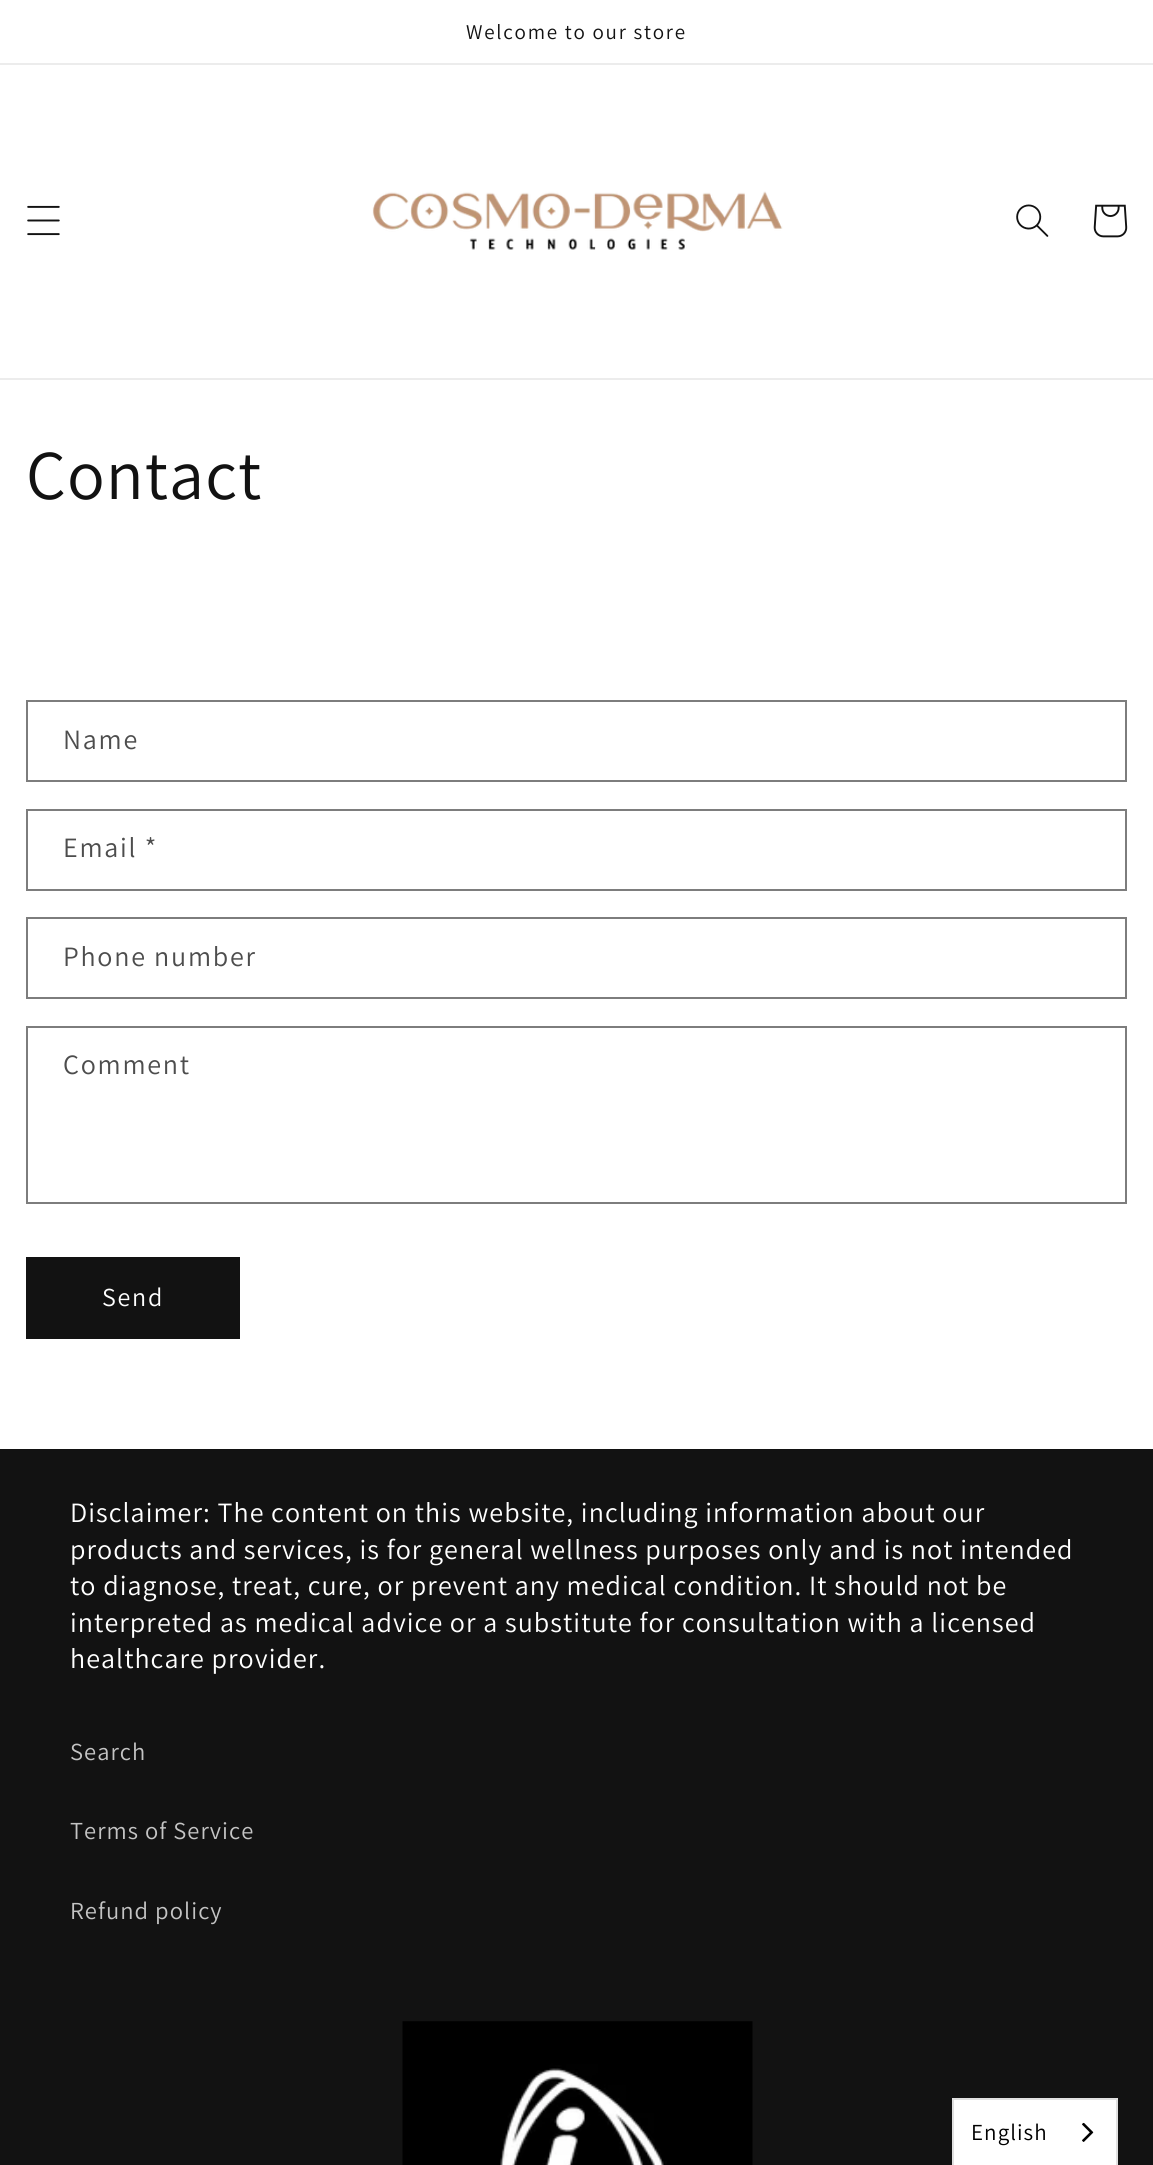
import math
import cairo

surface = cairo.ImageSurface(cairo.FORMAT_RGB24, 1153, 2165)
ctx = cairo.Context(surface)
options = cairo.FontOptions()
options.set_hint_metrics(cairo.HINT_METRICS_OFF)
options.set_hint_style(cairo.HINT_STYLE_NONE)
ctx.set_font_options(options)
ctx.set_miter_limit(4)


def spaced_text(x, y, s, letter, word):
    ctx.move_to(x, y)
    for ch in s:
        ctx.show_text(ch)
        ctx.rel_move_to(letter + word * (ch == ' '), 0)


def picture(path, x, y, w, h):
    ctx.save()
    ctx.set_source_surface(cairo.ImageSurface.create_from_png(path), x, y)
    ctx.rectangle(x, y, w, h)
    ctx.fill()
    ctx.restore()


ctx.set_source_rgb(1, 1, 1)
ctx.paint()
ctx.set_source_rgb(0.925, 0.925, 0.925)
ctx.rectangle(0, 63, 1153, 2)
ctx.fill()
ctx.select_font_face("Assistant")
ctx.set_font_size(21)
ctx.set_source_rgb(0.071, 0.071, 0.071)
spaced_text(466, 39, "Welcome to our store", 1.75, 0)
ctx.set_source_rgb(0.925, 0.925, 0.925)
ctx.rectangle(0, 378, 1153, 2)
ctx.fill()
picture("img1.png", 27, 205, 33, 31)
picture("img2.png", 372, 191, 411, 59)
picture("img3.png", 1016, 204, 33, 33)
picture("img4.png", 1093, 204, 35, 34)
ctx.set_font_size(70)
ctx.set_source_rgb(0.071, 0.071, 0.071)
spaced_text(26, 499, "Contact", 1.05, 0)
ctx.rectangle(27, 701, 1099, 80)
ctx.set_source_rgb(0.49, 0.49, 0.49)
ctx.stroke()
ctx.set_font_size(28)
ctx.set_source_rgb(0.302, 0.302, 0.302)
spaced_text(63, 749, "Name", 1.75, 0)
ctx.rectangle(27, 810, 1099, 80)
ctx.set_source_rgb(0.49, 0.49, 0.49)
ctx.stroke()
ctx.set_source_rgb(0.302, 0.302, 0.302)
spaced_text(63, 857, "Email *", 1.75, 0)
ctx.rectangle(27, 918, 1099, 80)
ctx.set_source_rgb(0.49, 0.49, 0.49)
ctx.stroke()
ctx.set_source_rgb(0.302, 0.302, 0.302)
spaced_text(63, 966, "Phone number", 1.75, 0)
ctx.rectangle(27, 1027, 1099, 176)
ctx.set_source_rgb(0.49, 0.49, 0.49)
ctx.stroke()
ctx.set_source_rgb(0.302, 0.302, 0.302)
spaced_text(63, 1074, "Comment", 1.75, 0)
ctx.set_source_rgb(0.071, 0.071, 0.071)
ctx.rectangle(26, 1257, 214, 82)
ctx.fill()
ctx.set_font_size(26)
ctx.set_source_rgb(1, 1, 1)
spaced_text(102, 1306, "Send", 1.75, 0)
ctx.set_source_rgb(0.071, 0.071, 0.071)
ctx.rectangle(0, 1449, 1153, 716)
ctx.fill()
ctx.set_font_size(28)
ctx.set_source_rgb(1, 1, 1)
spaced_text(70, 1522, "Disclaimer: The content on this website, including information about our", 1.05, 0)
spaced_text(70, 1559, "products and services, is for general wellness purposes only and is not intended", 1.05, 0)
spaced_text(70, 1595, "to diagnose, treat, cure, or prevent any medical condition. It should not be", 1.05, 0)
spaced_text(70, 1632, "interpreted as medical advice or a substitute for consultation with a licensed", 1.05, 0)
spaced_text(70, 1668, "healthcare provider.", 1.05, 0)
ctx.set_font_size(24.5)
ctx.set_source_rgb(0.769, 0.769, 0.769)
spaced_text(70, 1760, "Search", 1.05, 0)
spaced_text(70, 1839, "Terms of Service", 1.05, 0)
spaced_text(70, 1919, "Refund policy", 1.05, 0)
picture("img5.png", 402, 2021, 351, 144)
ctx.set_source_rgb(1, 1, 1)
ctx.rectangle(953, 2099, 164, 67)
ctx.fill_preserve()
ctx.set_source_rgb(0.878, 0.878, 0.878)
ctx.stroke()
ctx.set_font_size(23)
ctx.set_source_rgb(0, 0, 0)
spaced_text(971, 2140, "English", 1.05, 0)
picture("img6.png", 1082, 2122, 12, 20)
surface.write_to_png("page.png")
